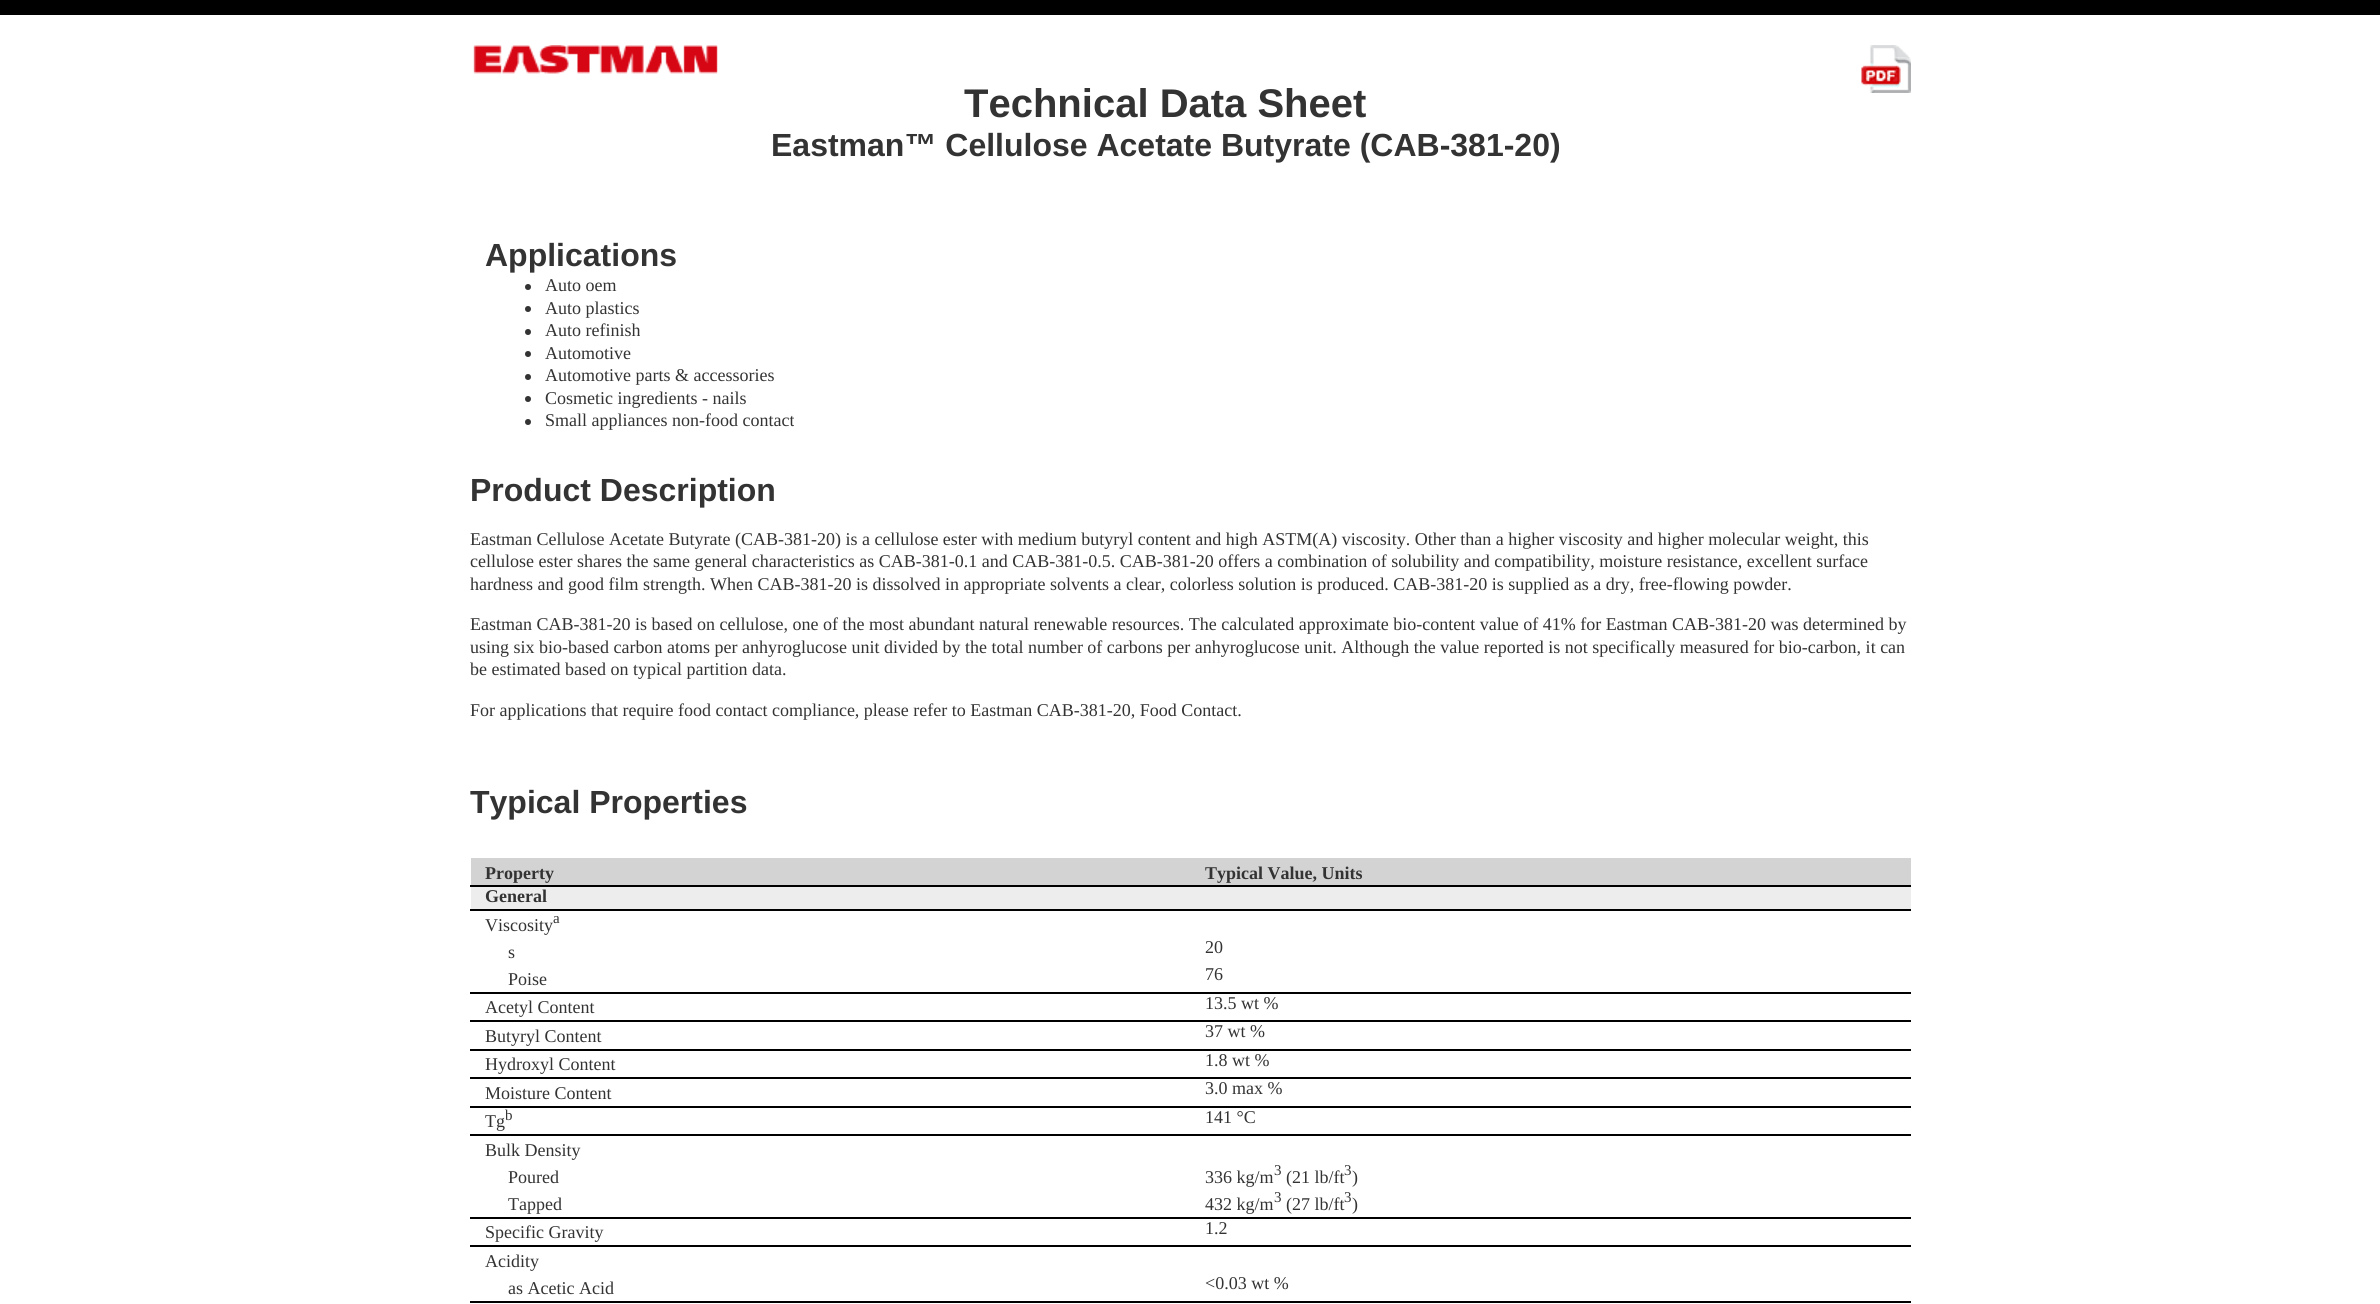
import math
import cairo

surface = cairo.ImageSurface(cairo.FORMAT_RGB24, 2380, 1304)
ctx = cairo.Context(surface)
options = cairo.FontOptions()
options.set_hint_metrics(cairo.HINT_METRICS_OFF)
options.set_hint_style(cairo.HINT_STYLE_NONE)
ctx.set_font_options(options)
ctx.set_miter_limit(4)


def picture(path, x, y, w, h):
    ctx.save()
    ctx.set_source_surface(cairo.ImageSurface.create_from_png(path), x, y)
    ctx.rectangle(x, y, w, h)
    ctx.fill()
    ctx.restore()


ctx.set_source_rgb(1, 1, 1)
ctx.paint()
ctx.set_source_rgb(0, 0, 0)
ctx.rectangle(0, 0, 2380, 15)
ctx.fill()
picture("img1.png", 1861, 45, 50, 48)
picture("img2.png", 473, 45, 245, 29)
ctx.select_font_face("Liberation Sans", cairo.FONT_SLANT_NORMAL, cairo.FONT_WEIGHT_BOLD)
ctx.set_font_size(40)
ctx.set_source_rgb(0.2, 0.2, 0.2)
ctx.move_to(964, 117)
ctx.show_text("Technical Data Sheet")
ctx.set_font_size(32)
ctx.move_to(771, 156)
ctx.show_text("Eastman™ Cellulose Acetate Butyrate (CAB-381-20)")
ctx.move_to(485, 266)
ctx.show_text("Applications")
ctx.new_path()
ctx.arc(528, 287, 3, 0, 2 * math.pi)
ctx.fill()
ctx.select_font_face("Liberation Serif")
ctx.set_font_size(18)
ctx.move_to(545, 291)
ctx.show_text("Auto oem")
ctx.new_path()
ctx.arc(528, 309, 3, 0, 2 * math.pi)
ctx.fill()
ctx.move_to(545, 314)
ctx.show_text("Auto plastics")
ctx.new_path()
ctx.arc(528, 332, 3, 0, 2 * math.pi)
ctx.fill()
ctx.move_to(545, 336)
ctx.show_text("Auto refinish")
ctx.new_path()
ctx.arc(528, 354, 3, 0, 2 * math.pi)
ctx.fill()
ctx.move_to(545, 359)
ctx.show_text("Automotive")
ctx.new_path()
ctx.arc(528, 377, 3, 0, 2 * math.pi)
ctx.fill()
ctx.move_to(545, 381)
ctx.show_text("Automotive parts & accessories")
ctx.new_path()
ctx.arc(528, 399, 3, 0, 2 * math.pi)
ctx.fill()
ctx.move_to(545, 404)
ctx.show_text("Cosmetic ingredients - nails")
ctx.new_path()
ctx.arc(528, 422, 3, 0, 2 * math.pi)
ctx.fill()
ctx.move_to(545, 426)
ctx.show_text("Small appliances non-food contact")
ctx.select_font_face("Liberation Sans", cairo.FONT_SLANT_NORMAL, cairo.FONT_WEIGHT_BOLD)
ctx.set_font_size(32)
ctx.move_to(470, 501)
ctx.show_text("Product Description")
ctx.select_font_face("Liberation Serif")
ctx.set_font_size(18)
ctx.move_to(470, 545)
ctx.show_text("Eastman Cellulose Acetate Butyrate (CAB-381-20) is a cellulose ester with medium butyryl content and high ASTM(A) viscosity. Other than a higher viscosity and higher molecular weight, this")
ctx.move_to(470, 567)
ctx.show_text("cellulose ester shares the same general characteristics as CAB-381-0.1 and CAB-381-0.5. CAB-381-20 offers a combination of solubility and compatibility, moisture resistance, excellent surface")
ctx.move_to(470, 590)
ctx.show_text("hardness and good film strength. When CAB-381-20 is dissolved in appropriate solvents a clear, colorless solution is produced. CAB-381-20 is supplied as a dry, free-flowing powder.")
ctx.move_to(470, 630)
ctx.show_text("Eastman CAB-381-20 is based on cellulose, one of the most abundant natural renewable resources. The calculated approximate bio-content value of 41% for Eastman CAB-381-20 was determined by")
ctx.move_to(470, 653)
ctx.show_text("using six bio-based carbon atoms per anhyroglucose unit divided by the total number of carbons per anhyroglucose unit. Although the value reported is not specifically measured for bio-carbon, it can")
ctx.move_to(470, 675)
ctx.show_text("be estimated based on typical partition data.")
ctx.move_to(470, 716)
ctx.show_text("For applications that require food contact compliance, please refer to Eastman CAB-381-20, Food Contact.")
ctx.select_font_face("Liberation Sans", cairo.FONT_SLANT_NORMAL, cairo.FONT_WEIGHT_BOLD)
ctx.set_font_size(32)
ctx.move_to(470, 813)
ctx.show_text("Typical Properties")
ctx.set_source_rgb(0.827, 0.827, 0.827)
ctx.rectangle(471, 858, 1440, 27)
ctx.fill()
ctx.select_font_face("Liberation Serif", cairo.FONT_SLANT_NORMAL, cairo.FONT_WEIGHT_BOLD)
ctx.set_font_size(18)
ctx.set_source_rgb(0.2, 0.2, 0.2)
ctx.move_to(485, 879)
ctx.show_text("Property")
ctx.move_to(1205, 879)
ctx.show_text("Typical Value, Units")
ctx.set_source_rgb(0.929, 0.929, 0.929)
ctx.rectangle(471, 887, 1440, 22)
ctx.fill()
ctx.set_source_rgb(0, 0, 0)
ctx.rectangle(470, 885, 1441, 2)
ctx.fill()
ctx.set_source_rgb(0.2, 0.2, 0.2)
ctx.move_to(485, 902)
ctx.show_text("General")
ctx.set_source_rgb(0, 0, 0)
ctx.rectangle(470, 909, 1441, 2)
ctx.fill()
ctx.select_font_face("Liberation Serif")
ctx.set_source_rgb(0.2, 0.2, 0.2)
ctx.move_to(485, 931)
ctx.show_text("Viscosity")
ctx.set_font_size(15)
ctx.move_to(553, 923)
ctx.show_text("a")
ctx.set_font_size(18)
ctx.move_to(508, 958)
ctx.show_text("s")
ctx.move_to(1205, 953)
ctx.show_text("20")
ctx.move_to(508, 985)
ctx.show_text("Poise")
ctx.move_to(1205, 980)
ctx.show_text("76")
ctx.move_to(485, 1013)
ctx.show_text("Acetyl Content")
ctx.set_source_rgb(0, 0, 0)
ctx.rectangle(470, 992, 1441, 2)
ctx.fill()
ctx.set_source_rgb(0.2, 0.2, 0.2)
ctx.move_to(1205, 1009)
ctx.show_text("13.5 wt %")
ctx.move_to(485, 1042)
ctx.show_text("Butyryl Content")
ctx.set_source_rgb(0, 0, 0)
ctx.rectangle(470, 1020, 1441, 2)
ctx.fill()
ctx.set_source_rgb(0.2, 0.2, 0.2)
ctx.move_to(1205, 1037)
ctx.show_text("37 wt %")
ctx.move_to(485, 1070)
ctx.show_text("Hydroxyl Content")
ctx.set_source_rgb(0, 0, 0)
ctx.rectangle(470, 1049, 1441, 2)
ctx.fill()
ctx.set_source_rgb(0.2, 0.2, 0.2)
ctx.move_to(1205, 1066)
ctx.show_text("1.8 wt %")
ctx.move_to(485, 1099)
ctx.show_text("Moisture Content")
ctx.set_source_rgb(0, 0, 0)
ctx.rectangle(470, 1077, 1441, 2)
ctx.fill()
ctx.set_source_rgb(0.2, 0.2, 0.2)
ctx.move_to(1205, 1094)
ctx.show_text("3.0 max %")
ctx.move_to(485, 1127)
ctx.show_text("Tg")
ctx.set_font_size(15)
ctx.move_to(505, 1120)
ctx.show_text("b")
ctx.set_source_rgb(0, 0, 0)
ctx.rectangle(470, 1106, 1441, 2)
ctx.fill()
ctx.set_font_size(18)
ctx.set_source_rgb(0.2, 0.2, 0.2)
ctx.move_to(1205, 1123)
ctx.show_text("141 °C")
ctx.set_source_rgb(0, 0, 0)
ctx.rectangle(470, 1134, 1441, 2)
ctx.fill()
ctx.set_source_rgb(0.2, 0.2, 0.2)
ctx.move_to(485, 1156)
ctx.show_text("Bulk Density")
ctx.move_to(508, 1183)
ctx.show_text("Poured")
ctx.move_to(1205, 1183)
ctx.show_text("336 kg/m")
ctx.set_font_size(15)
ctx.move_to(1274, 1175)
ctx.show_text("3")
ctx.set_font_size(18)
ctx.move_to(1286, 1183)
ctx.show_text("(21 lb/ft")
ctx.set_font_size(15)
ctx.move_to(1344, 1175)
ctx.show_text("3")
ctx.set_font_size(18)
ctx.move_to(1352, 1183)
ctx.show_text(")")
ctx.move_to(508, 1210)
ctx.show_text("Tapped")
ctx.move_to(1205, 1210)
ctx.show_text("432 kg/m")
ctx.set_font_size(15)
ctx.move_to(1274, 1202)
ctx.show_text("3")
ctx.set_font_size(18)
ctx.move_to(1286, 1210)
ctx.show_text("(27 lb/ft")
ctx.set_font_size(15)
ctx.move_to(1344, 1202)
ctx.show_text("3")
ctx.set_font_size(18)
ctx.move_to(1352, 1210)
ctx.show_text(")")
ctx.move_to(485, 1238)
ctx.show_text("Specific Gravity")
ctx.set_source_rgb(0, 0, 0)
ctx.rectangle(470, 1217, 1441, 2)
ctx.fill()
ctx.set_source_rgb(0.2, 0.2, 0.2)
ctx.move_to(1205, 1234)
ctx.show_text("1.2")
ctx.set_source_rgb(0, 0, 0)
ctx.rectangle(470, 1245, 1441, 2)
ctx.fill()
ctx.set_source_rgb(0.2, 0.2, 0.2)
ctx.move_to(485, 1267)
ctx.show_text("Acidity")
ctx.move_to(508, 1294)
ctx.show_text("as Acetic Acid")
ctx.move_to(1205, 1289)
ctx.show_text("<0.03 wt %")
ctx.set_source_rgb(0, 0, 0)
ctx.rectangle(470, 1301, 1441, 2)
ctx.fill()
surface.write_to_png("page.png")
